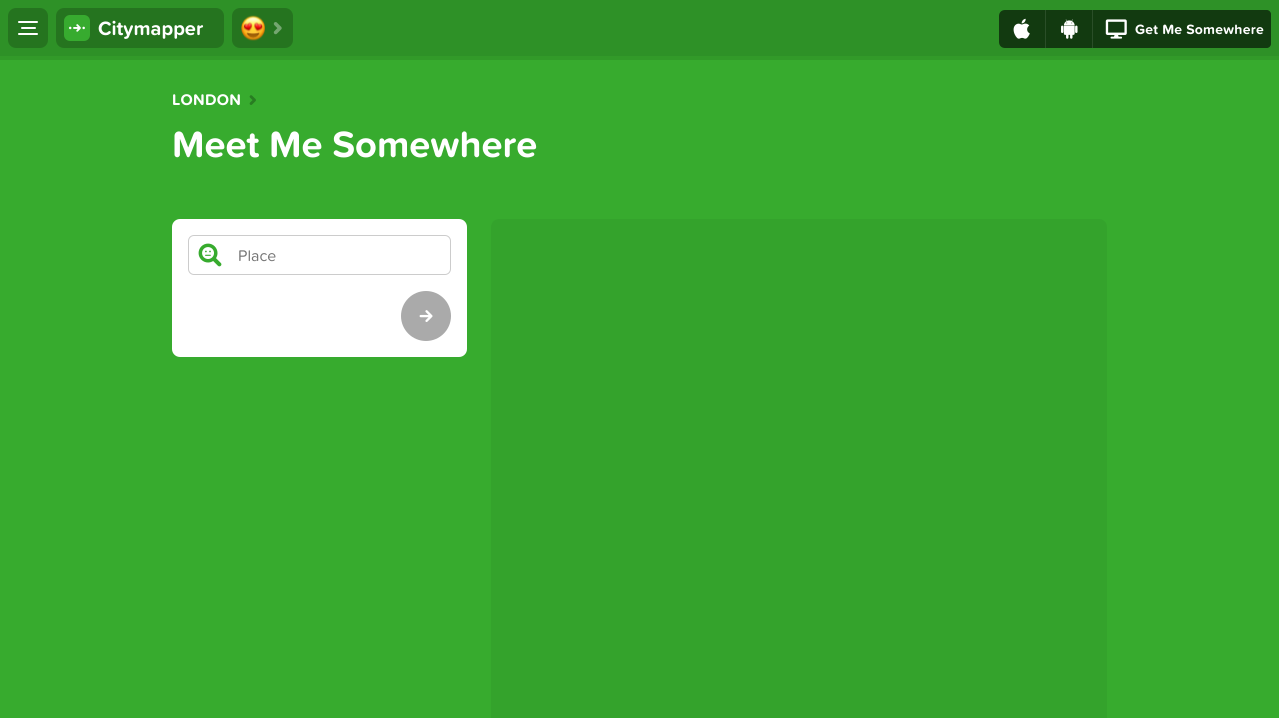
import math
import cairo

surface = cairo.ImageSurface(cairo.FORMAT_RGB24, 1279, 718)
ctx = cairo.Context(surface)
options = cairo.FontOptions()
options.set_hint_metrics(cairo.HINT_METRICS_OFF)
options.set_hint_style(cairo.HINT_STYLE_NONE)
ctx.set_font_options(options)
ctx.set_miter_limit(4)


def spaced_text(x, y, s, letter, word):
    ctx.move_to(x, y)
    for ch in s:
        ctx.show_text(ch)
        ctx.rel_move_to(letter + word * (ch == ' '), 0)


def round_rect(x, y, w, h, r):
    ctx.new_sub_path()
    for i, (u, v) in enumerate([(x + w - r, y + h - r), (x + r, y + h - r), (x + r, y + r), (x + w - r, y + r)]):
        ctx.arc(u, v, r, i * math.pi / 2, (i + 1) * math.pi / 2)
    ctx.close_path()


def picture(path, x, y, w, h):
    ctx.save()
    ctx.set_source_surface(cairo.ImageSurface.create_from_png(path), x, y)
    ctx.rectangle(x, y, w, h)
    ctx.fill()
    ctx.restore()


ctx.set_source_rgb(0.216, 0.671, 0.18)
ctx.paint()
ctx.set_source_rgb(0.196, 0.604, 0.161)
ctx.rectangle(0, 56, 1279, 4)
ctx.fill()
ctx.set_source_rgb(0.18, 0.569, 0.153)
ctx.rectangle(0, 0, 1279, 56)
ctx.fill()
ctx.set_source_rgb(0.145, 0.455, 0.122)
round_rect(8, 8, 40, 40, 8)
ctx.fill()
ctx.set_source_rgb(1, 1, 1)
round_rect(18, 21, 20, 2, 1)
ctx.fill()
round_rect(21, 27, 15, 2, 1)
ctx.fill()
round_rect(18, 33, 20, 2, 1)
ctx.fill()
ctx.set_source_rgb(0.145, 0.455, 0.122)
round_rect(56, 8, 168, 40, 8)
ctx.fill()
picture("img1.png", 64, 15, 26, 26)
ctx.select_font_face("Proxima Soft", cairo.FONT_SLANT_NORMAL, cairo.FONT_WEIGHT_BOLD)
ctx.set_font_size(20)
ctx.set_source_rgb(1, 1, 1)
ctx.move_to(98, 35)
ctx.show_text("Citymapper")
ctx.set_source_rgb(0.145, 0.455, 0.122)
round_rect(232, 8, 61, 40, 8)
ctx.fill()
picture("img2.png", 241, 15, 24, 26)
picture("img3.png", 273, 22, 9, 13)
ctx.set_source_rgb(0.071, 0.227, 0.063)
ctx.new_path()
ctx.move_to(1005, 10)
ctx.line_to(1046, 10)
ctx.line_to(1046, 48)
ctx.line_to(1005, 48)
ctx.curve_to(1001.5, 48, 999, 45.5, 999, 42)
ctx.line_to(999, 16)
ctx.curve_to(999, 12.5, 1001.5, 10, 1005, 10)
ctx.close_path()
ctx.fill()
ctx.set_source_rgb(0.165, 0.306, 0.157)
ctx.rectangle(1045, 10, 1, 38)
ctx.fill()
picture("img4.png", 1013, 18, 17, 21)
ctx.set_source_rgb(0.071, 0.227, 0.063)
ctx.rectangle(1046, 10, 46, 38)
ctx.fill()
ctx.set_source_rgb(0.165, 0.306, 0.157)
ctx.rectangle(1092, 10, 1, 38)
ctx.fill()
picture("img5.png", 1061, 19, 17, 20)
ctx.set_source_rgb(0.071, 0.227, 0.063)
ctx.new_path()
ctx.move_to(1093, 10)
ctx.line_to(1267, 10)
ctx.curve_to(1269, 10, 1271, 12, 1271, 14)
ctx.line_to(1271, 44)
ctx.curve_to(1271, 46, 1269, 48, 1267, 48)
ctx.line_to(1093, 48)
ctx.close_path()
ctx.fill()
picture("img6.png", 1105, 19, 22, 20)
ctx.set_font_size(14)
ctx.set_source_rgb(1, 1, 1)
spaced_text(1135, 34, "Get Me Somewhere", 0.25, 0)
ctx.set_font_size(16)
spaced_text(172, 105, "LONDON", 0.25, 0)
picture("img7.png", 249, 95, 7, 10)
ctx.set_font_size(38)
ctx.move_to(172, 157)
ctx.show_text("Meet Me Somewhere")
round_rect(172, 219, 295, 138, 8)
ctx.fill()
round_rect(188.5, 235.5, 262, 39, 5.5)
ctx.set_source_rgb(0.8, 0.8, 0.8)
ctx.set_line_width(1)
ctx.stroke()
picture("img8.png", 198, 243, 24, 24)
ctx.select_font_face("Proxima Soft")
ctx.set_font_size(16)
ctx.set_source_rgb(0.459, 0.459, 0.459)
ctx.move_to(238, 261)
ctx.show_text("Place")
ctx.set_source_rgb(0.667, 0.667, 0.667)
ctx.new_path()
ctx.arc(426, 316, 25, 0, 2 * math.pi)
ctx.fill()
picture("img9.png", 419, 310, 14, 12)
ctx.set_source_rgb(0.204, 0.639, 0.173)
round_rect(491, 219, 616, 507, 8)
ctx.fill()
surface.write_to_png("page.png")
